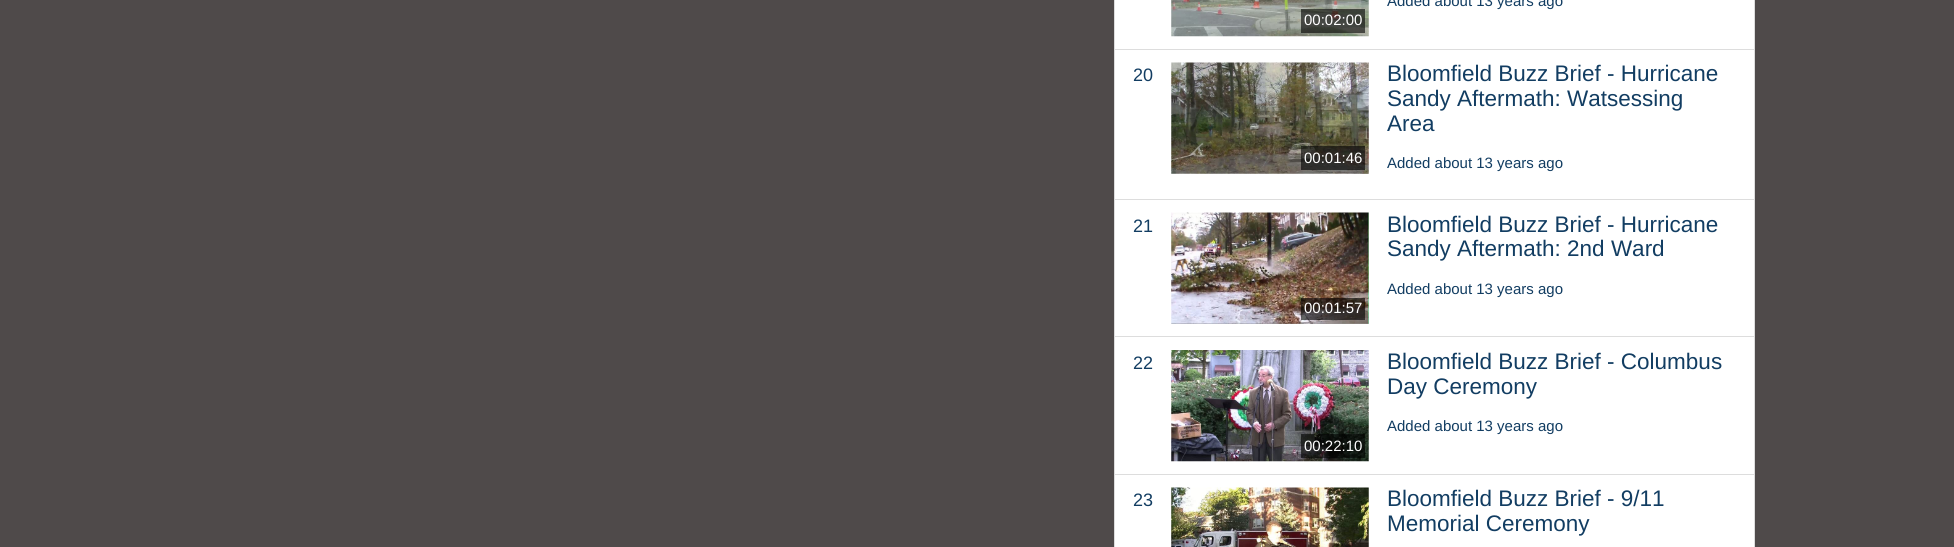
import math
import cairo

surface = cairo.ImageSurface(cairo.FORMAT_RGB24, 1954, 547)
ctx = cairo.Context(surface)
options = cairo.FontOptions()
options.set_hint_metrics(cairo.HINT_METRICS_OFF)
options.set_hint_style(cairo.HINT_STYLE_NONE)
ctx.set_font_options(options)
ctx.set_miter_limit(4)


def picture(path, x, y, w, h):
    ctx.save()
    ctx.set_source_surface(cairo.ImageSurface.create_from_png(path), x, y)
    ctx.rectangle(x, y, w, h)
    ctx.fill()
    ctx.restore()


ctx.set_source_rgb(0.31, 0.29, 0.29)
ctx.paint()
ctx.set_source_rgb(1, 1, 1)
ctx.rectangle(1114.5, -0.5, 640, 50)
ctx.fill_preserve()
ctx.set_source_rgb(0.867, 0.867, 0.867)
ctx.set_line_width(1)
ctx.stroke()
ctx.select_font_face("Liberation Sans")
ctx.set_font_size(15)
ctx.set_source_rgb(0.071, 0.239, 0.384)
ctx.move_to(1387, 6)
ctx.show_text("Added about 13 years ago")
picture("img1.png", 1171, 0, 198, 37)
ctx.set_source_rgba(0, 0, 0, 0.6)
ctx.rectangle(1301, 9, 64, 24)
ctx.fill()
ctx.set_source_rgb(1, 1, 1)
ctx.move_to(1304, 25)
ctx.show_text("00:02:00")
ctx.rectangle(1114.5, 49.5, 640, 150)
ctx.fill_preserve()
ctx.set_source_rgb(0.867, 0.867, 0.867)
ctx.stroke()
ctx.set_font_size(18)
ctx.set_source_rgb(0.071, 0.239, 0.384)
ctx.move_to(1133, 81)
ctx.show_text("20")
ctx.set_font_size(22.5)
ctx.move_to(1387, 81)
ctx.show_text("Bloomfield Buzz Brief - Hurricane")
ctx.move_to(1387, 106)
ctx.show_text("Sandy Aftermath: Watsessing")
ctx.move_to(1387, 131)
ctx.show_text("Area")
ctx.set_font_size(15)
ctx.move_to(1387, 168)
ctx.show_text("Added about 13 years ago")
picture("img2.png", 1171, 62, 198, 112)
ctx.set_source_rgba(0, 0, 0, 0.6)
ctx.rectangle(1301, 146, 64, 24)
ctx.fill()
ctx.set_source_rgb(1, 1, 1)
ctx.move_to(1304, 163)
ctx.show_text("00:01:46")
ctx.rectangle(1115, 200, 639, 136)
ctx.fill()
ctx.rectangle(1114.5, 199.5, 640, 138)
ctx.set_source_rgb(0.867, 0.867, 0.867)
ctx.stroke()
ctx.set_font_size(18)
ctx.set_source_rgb(0.071, 0.239, 0.384)
ctx.move_to(1133, 232)
ctx.show_text("21")
ctx.set_font_size(22.5)
ctx.move_to(1387, 232)
ctx.show_text("Bloomfield Buzz Brief - Hurricane")
ctx.move_to(1387, 256)
ctx.show_text("Sandy Aftermath: 2nd Ward")
ctx.set_font_size(15)
ctx.move_to(1387, 294)
ctx.show_text("Added about 13 years ago")
picture("img3.png", 1171, 212, 198, 112)
ctx.set_source_rgba(0, 0, 0, 0.6)
ctx.rectangle(1301, 298, 64, 22)
ctx.fill()
ctx.set_source_rgb(1, 1, 1)
ctx.move_to(1304, 313)
ctx.show_text("00:01:57")
ctx.rectangle(1114.5, 336.5, 640, 138)
ctx.fill_preserve()
ctx.set_source_rgb(0.867, 0.867, 0.867)
ctx.stroke()
ctx.set_font_size(18)
ctx.set_source_rgb(0.071, 0.239, 0.384)
ctx.move_to(1133, 369)
ctx.show_text("22")
ctx.set_font_size(22.5)
ctx.move_to(1387, 369)
ctx.show_text("Bloomfield Buzz Brief - Columbus")
ctx.move_to(1387, 394)
ctx.show_text("Day Ceremony")
ctx.set_font_size(15)
ctx.move_to(1387, 431)
ctx.show_text("Added about 13 years ago")
picture("img4.png", 1171, 350, 198, 112)
ctx.set_source_rgba(0, 0, 0, 0.6)
ctx.rectangle(1301, 434, 64, 24)
ctx.fill()
ctx.set_source_rgb(1, 1, 1)
ctx.move_to(1304, 451)
ctx.show_text("00:22:10")
ctx.rectangle(1114.5, 474.5, 640, 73)
ctx.fill_preserve()
ctx.set_source_rgb(0.867, 0.867, 0.867)
ctx.stroke()
ctx.set_font_size(18)
ctx.set_source_rgb(0.071, 0.239, 0.384)
ctx.move_to(1133, 506)
ctx.show_text("23")
picture("img5.png", 1171, 487, 198, 60)
ctx.set_font_size(22.5)
ctx.move_to(1387, 506)
ctx.show_text("Bloomfield Buzz Brief - 9/11")
ctx.move_to(1387, 531)
ctx.show_text("Memorial Ceremony")
surface.write_to_png("page.png")
